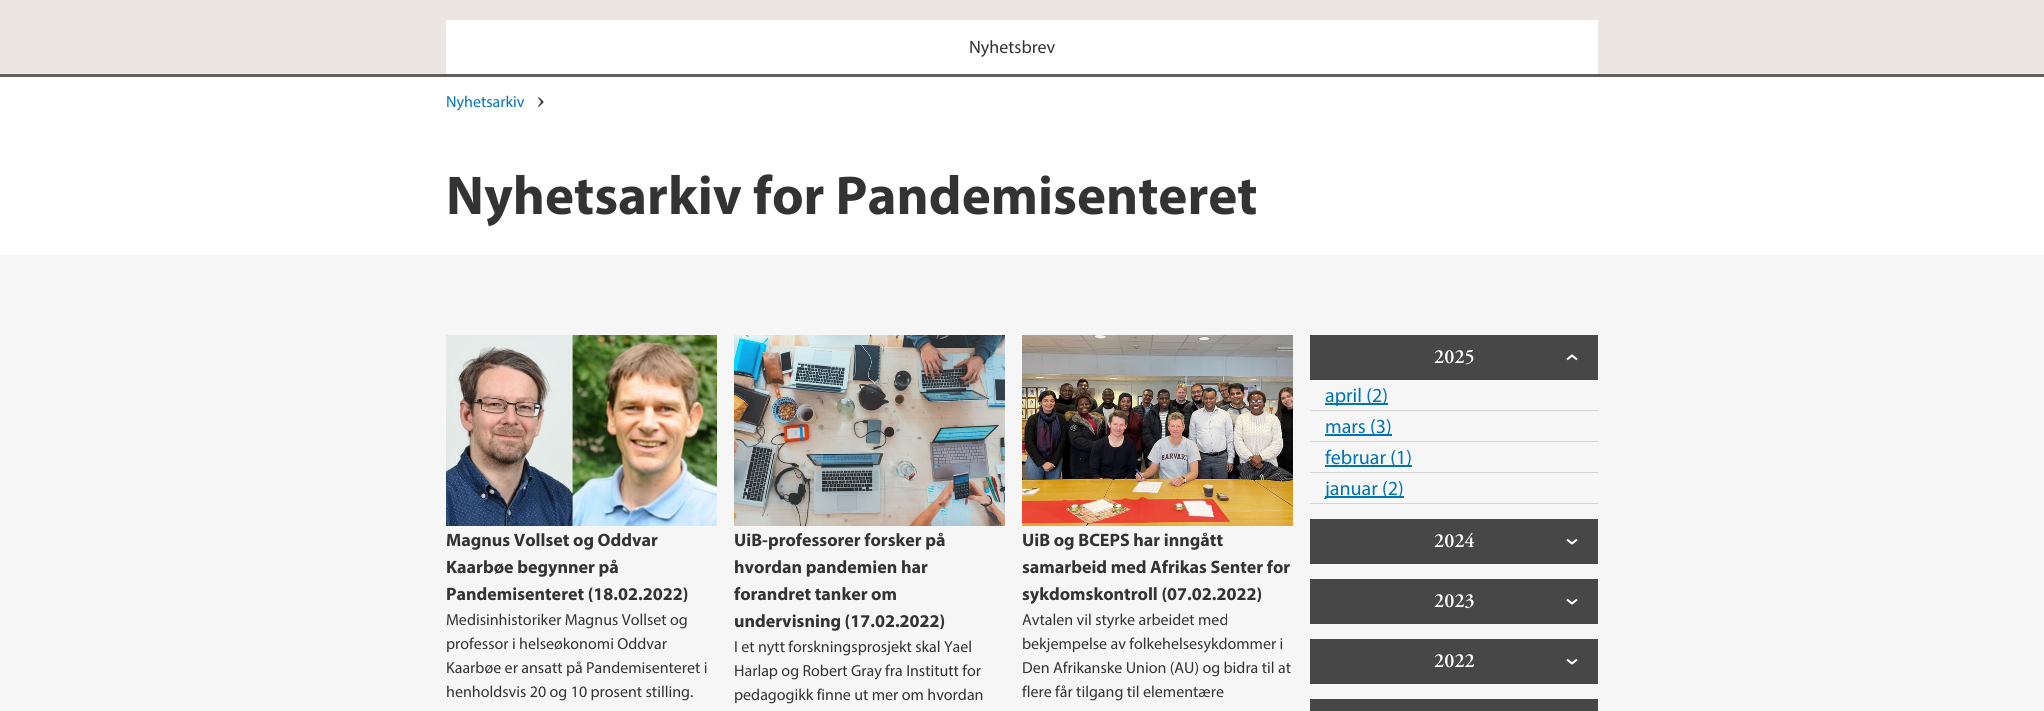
import math
import cairo

surface = cairo.ImageSurface(cairo.FORMAT_RGB24, 2044, 711)
ctx = cairo.Context(surface)
options = cairo.FontOptions()
options.set_hint_metrics(cairo.HINT_METRICS_OFF)
options.set_hint_style(cairo.HINT_STYLE_NONE)
ctx.set_font_options(options)
ctx.set_miter_limit(4)


def picture(path, x, y, w, h):
    ctx.save()
    ctx.set_source_surface(cairo.ImageSurface.create_from_png(path), x, y)
    ctx.rectangle(x, y, w, h)
    ctx.fill()
    ctx.restore()


ctx.set_source_rgb(1, 1, 1)
ctx.paint()
ctx.set_source_rgb(0.918, 0.902, 0.886)
ctx.rectangle(0, 0, 2044, 74)
ctx.fill()
ctx.set_source_rgb(0.376, 0.376, 0.376)
ctx.rectangle(0, 74, 2044, 3)
ctx.fill()
ctx.set_source_rgb(1, 1, 1)
ctx.rectangle(446, 20, 1152, 54)
ctx.fill()
ctx.select_font_face("Myriad")
ctx.set_font_size(18)
ctx.set_source_rgb(0.2, 0.2, 0.2)
ctx.move_to(969, 53)
ctx.show_text("Nyhetsbrev")
ctx.set_font_size(16)
ctx.set_source_rgb(0, 0.459, 0.686)
ctx.move_to(446, 107)
ctx.show_text("Nyhetsarkiv")
picture("img1.png", 538, 97, 6, 10)
ctx.select_font_face("Myriad", cairo.FONT_SLANT_NORMAL, cairo.FONT_WEIGHT_BOLD)
ctx.set_font_size(55)
ctx.set_source_rgb(0.2, 0.2, 0.2)
ctx.move_to(446, 214)
ctx.show_text("Nyhetsarkiv for Pandemisenteret")
ctx.set_source_rgb(0.961, 0.961, 0.961)
ctx.rectangle(0, 255, 2044, 456)
ctx.fill()
picture("img2.png", 446, 335, 271, 191)
ctx.set_font_size(18)
ctx.set_source_rgb(0.2, 0.2, 0.2)
ctx.move_to(446, 546)
ctx.show_text("Magnus Vollset og Oddvar")
ctx.move_to(446, 573)
ctx.show_text("Kaarbøe begynner på")
ctx.move_to(446, 600)
ctx.show_text("Pandemisenteret (18.02.2022)")
ctx.select_font_face("Myriad")
ctx.set_font_size(16)
ctx.move_to(446, 625)
ctx.show_text("Medisinhistoriker Magnus Vollset og")
ctx.move_to(446, 649)
ctx.show_text("professor i helseøkonomi Oddvar")
ctx.move_to(446, 673)
ctx.show_text("Kaarbøe er ansatt på Pandemisenteret i")
ctx.move_to(446, 697)
ctx.show_text("henholdsvis 20 og 10 prosent stilling.")
picture("img3.png", 734, 335, 271, 191)
ctx.select_font_face("Myriad", cairo.FONT_SLANT_NORMAL, cairo.FONT_WEIGHT_BOLD)
ctx.set_font_size(18)
ctx.move_to(734, 546)
ctx.show_text("UiB-professorer forsker på")
ctx.move_to(734, 573)
ctx.show_text("hvordan pandemien har")
ctx.move_to(734, 600)
ctx.show_text("forandret tanker om")
ctx.move_to(734, 627)
ctx.show_text("undervisning (17.02.2022)")
ctx.select_font_face("Myriad")
ctx.set_font_size(16)
ctx.move_to(734, 652)
ctx.show_text("I et nytt forskningsprosjekt skal Yael")
ctx.move_to(734, 676)
ctx.show_text("Harlap og Robert Gray fra Institutt for")
ctx.move_to(734, 700)
ctx.show_text("pedagogikk finne ut mer om hvordan")
picture("img4.png", 1022, 335, 271, 191)
ctx.select_font_face("Myriad", cairo.FONT_SLANT_NORMAL, cairo.FONT_WEIGHT_BOLD)
ctx.set_font_size(18)
ctx.move_to(1022, 546)
ctx.show_text("UiB og BCEPS har inngått")
ctx.move_to(1022, 573)
ctx.show_text("samarbeid med Afrikas Senter for")
ctx.move_to(1022, 600)
ctx.show_text("sykdomskontroll (07.02.2022)")
ctx.select_font_face("Myriad")
ctx.set_font_size(16)
ctx.move_to(1022, 625)
ctx.show_text("Avtalen vil styrke arbeidet med")
ctx.move_to(1022, 649)
ctx.show_text("bekjempelse av folkehelsesykdommer i")
ctx.move_to(1022, 673)
ctx.show_text("Den Afrikanske Union (AU) og bidra til at")
ctx.move_to(1022, 697)
ctx.show_text("flere får tilgang til elementære")
ctx.set_source_rgb(0.278, 0.278, 0.278)
ctx.rectangle(1310, 335, 288, 45)
ctx.fill()
ctx.select_font_face("Adobe Garamond SemiBold")
ctx.set_font_size(20)
ctx.set_source_rgb(1, 1, 1)
ctx.move_to(1434, 363)
ctx.show_text("2025")
ctx.new_path()
ctx.move_to(1567, 359.5)
ctx.line_to(1572, 355.5)
ctx.line_to(1577, 359.5)
ctx.stroke()
ctx.set_source_rgb(0.835, 0.835, 0.835)
ctx.rectangle(1310, 410, 288, 1)
ctx.fill()
ctx.set_source_rgb(0, 0.459, 0.686)
ctx.rectangle(1325, 403, 63, 2)
ctx.fill()
ctx.select_font_face("Myriad")
ctx.move_to(1325, 402)
ctx.show_text("april (2)")
ctx.set_source_rgb(0.835, 0.835, 0.835)
ctx.rectangle(1310, 441, 288, 1)
ctx.fill()
ctx.set_source_rgb(0, 0.459, 0.686)
ctx.rectangle(1325, 434, 67, 2)
ctx.fill()
ctx.move_to(1325, 433)
ctx.show_text("mars (3)")
ctx.set_source_rgb(0.835, 0.835, 0.835)
ctx.rectangle(1310, 472, 288, 1)
ctx.fill()
ctx.set_source_rgb(0, 0.459, 0.686)
ctx.rectangle(1325, 465, 87, 2)
ctx.fill()
ctx.move_to(1325, 464)
ctx.show_text("februar (1)")
ctx.set_source_rgb(0.835, 0.835, 0.835)
ctx.rectangle(1310, 503, 288, 1)
ctx.fill()
ctx.set_source_rgb(0, 0.459, 0.686)
ctx.rectangle(1325, 496, 79, 2)
ctx.fill()
ctx.move_to(1325, 495)
ctx.show_text("januar (2)")
ctx.set_source_rgb(0.278, 0.278, 0.278)
ctx.rectangle(1310, 519, 288, 45)
ctx.fill()
ctx.select_font_face("Adobe Garamond SemiBold")
ctx.set_source_rgb(1, 1, 1)
ctx.move_to(1434, 547)
ctx.show_text("2024")
ctx.new_path()
ctx.move_to(1567, 539.5)
ctx.line_to(1572, 543.5)
ctx.line_to(1577, 539.5)
ctx.stroke()
ctx.set_source_rgb(0.278, 0.278, 0.278)
ctx.rectangle(1310, 579, 288, 45)
ctx.fill()
ctx.set_source_rgb(1, 1, 1)
ctx.move_to(1434, 607)
ctx.show_text("2023")
ctx.new_path()
ctx.move_to(1567, 599.5)
ctx.line_to(1572, 603.5)
ctx.line_to(1577, 599.5)
ctx.stroke()
ctx.set_source_rgb(0.278, 0.278, 0.278)
ctx.rectangle(1310, 639, 288, 45)
ctx.fill()
ctx.set_source_rgb(1, 1, 1)
ctx.move_to(1434, 667)
ctx.show_text("2022")
ctx.new_path()
ctx.move_to(1567, 659.5)
ctx.line_to(1572, 663.5)
ctx.line_to(1577, 659.5)
ctx.stroke()
ctx.set_source_rgb(0.278, 0.278, 0.278)
ctx.rectangle(1310, 699, 288, 12)
ctx.fill()
surface.write_to_png("page.png")
